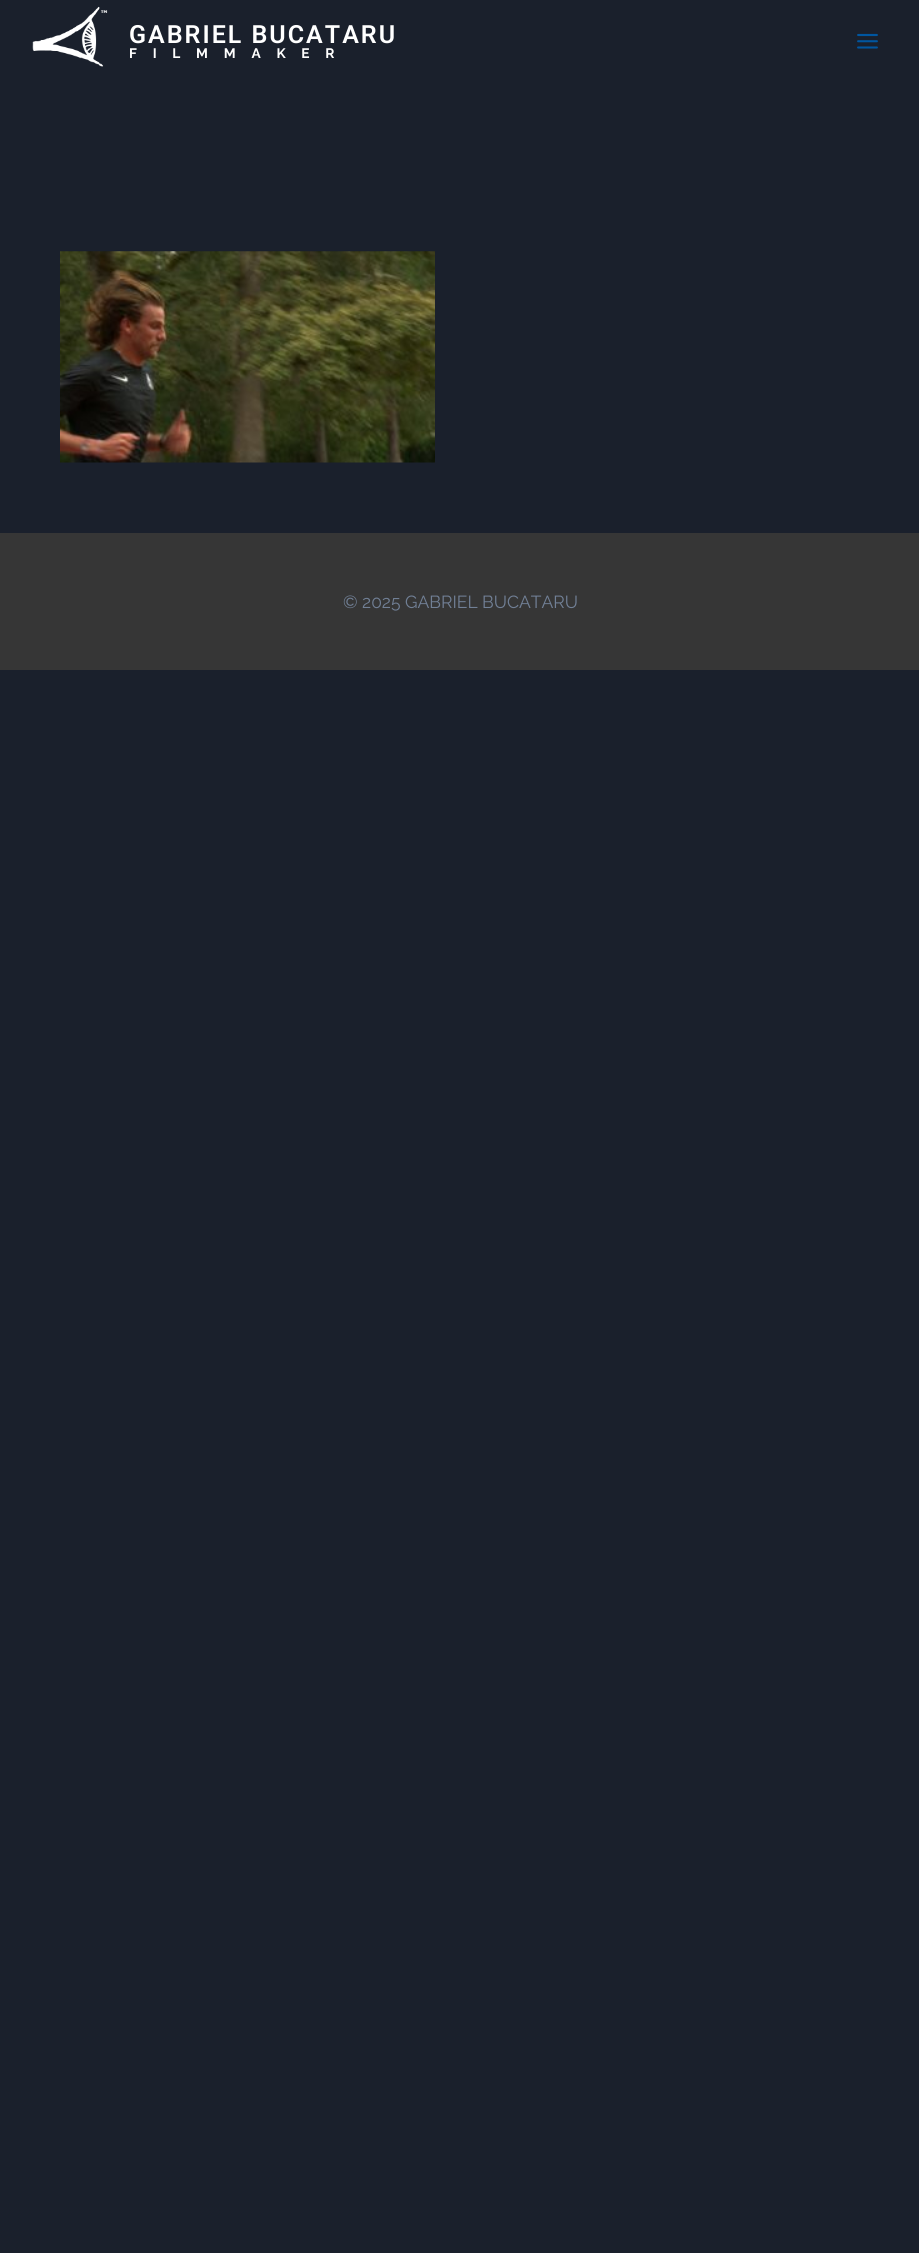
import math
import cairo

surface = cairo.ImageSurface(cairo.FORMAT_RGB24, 919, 2253)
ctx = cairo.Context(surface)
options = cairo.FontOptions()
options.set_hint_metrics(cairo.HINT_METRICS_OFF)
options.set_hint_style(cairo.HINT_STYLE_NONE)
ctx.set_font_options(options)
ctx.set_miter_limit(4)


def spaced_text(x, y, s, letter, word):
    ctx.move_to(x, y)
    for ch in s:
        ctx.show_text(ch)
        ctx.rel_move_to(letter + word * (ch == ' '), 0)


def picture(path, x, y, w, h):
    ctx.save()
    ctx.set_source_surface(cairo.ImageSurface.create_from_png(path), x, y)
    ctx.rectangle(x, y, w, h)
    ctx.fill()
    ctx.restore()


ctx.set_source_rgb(0.102, 0.125, 0.173)
ctx.paint()
picture("img1.png", 32, 6, 76, 61)
ctx.select_font_face("Roboto SemiBold")
ctx.set_font_size(25)
ctx.set_source_rgb(1, 1, 1)
spaced_text(129, 43, "GABRIEL BUCATARU", 2, 0)
ctx.select_font_face("Raleway", cairo.FONT_SLANT_NORMAL, cairo.FONT_WEIGHT_BOLD)
ctx.set_font_size(13.75)
spaced_text(129, 58, "FILMMAKER", 15.75, 0)
picture("img2.png", 857, 33, 21, 16)
picture("img3.png", 60, 251, 375, 212)
ctx.set_source_rgb(0.212, 0.212, 0.212)
ctx.rectangle(0, 533, 919, 137)
ctx.fill()
ctx.select_font_face("Raleway")
ctx.set_font_size(17.5)
ctx.set_source_rgb(0.443, 0.502, 0.588)
ctx.move_to(343, 608)
ctx.show_text("© 2025 GABRIEL BUCATARU")
surface.write_to_png("page.png")
